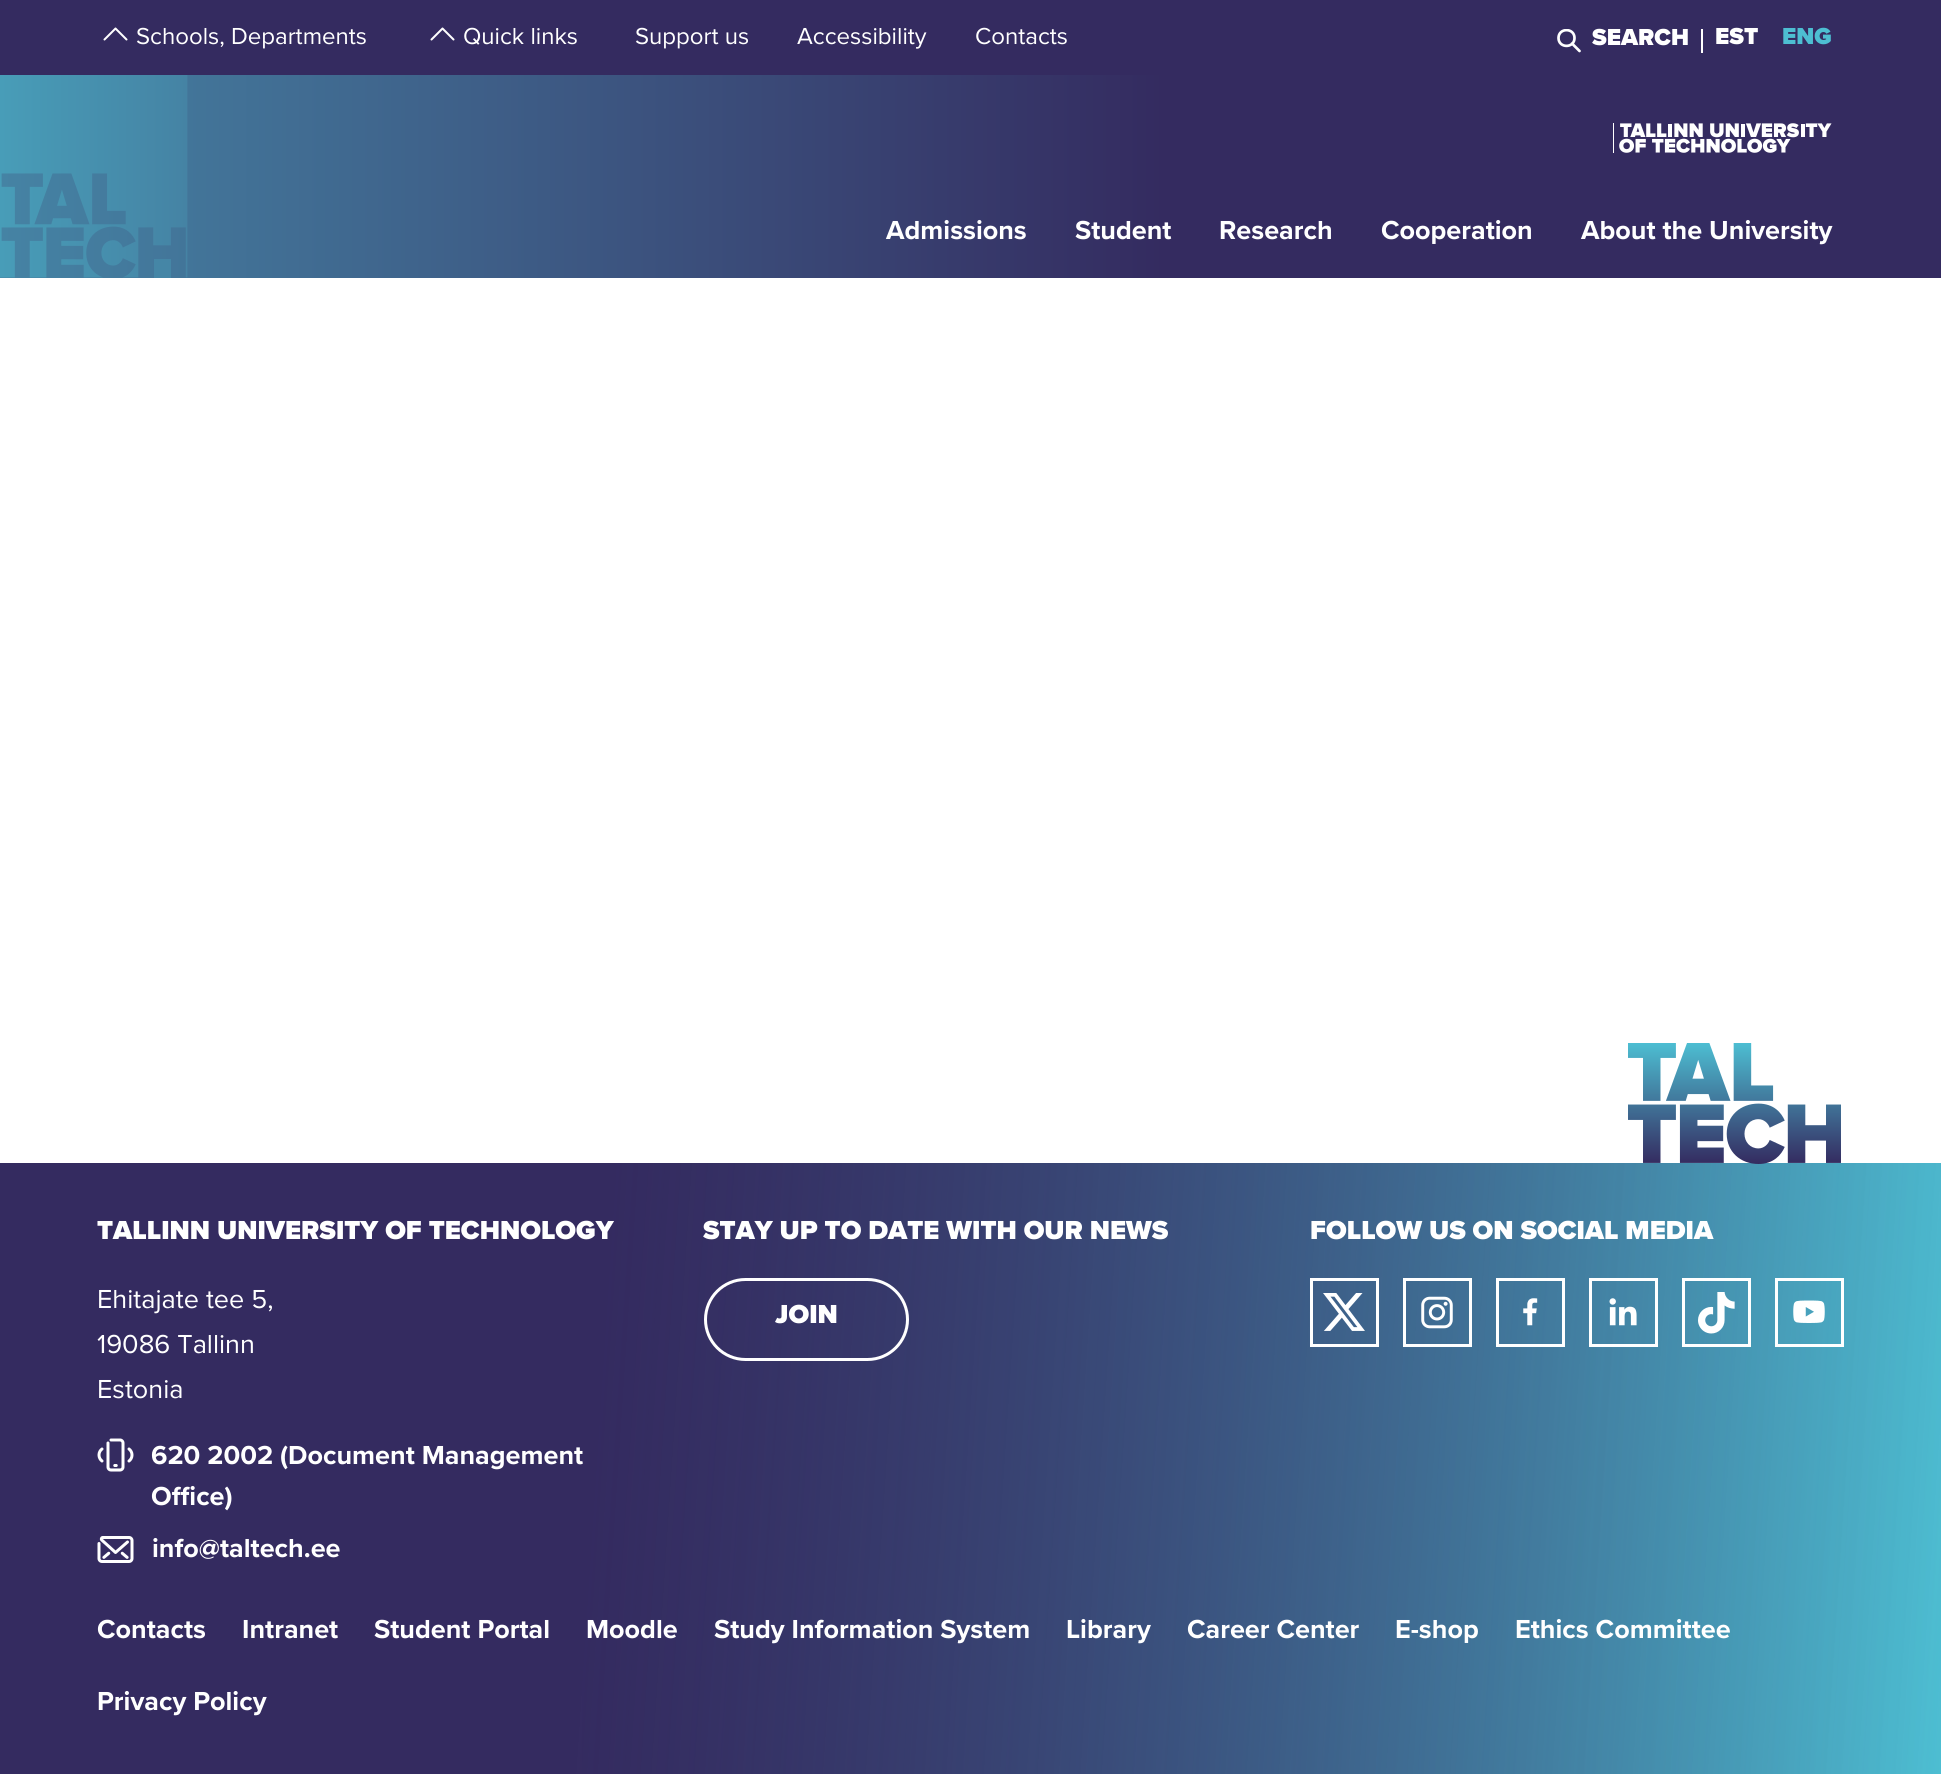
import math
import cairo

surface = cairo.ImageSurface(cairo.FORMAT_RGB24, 1941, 1774)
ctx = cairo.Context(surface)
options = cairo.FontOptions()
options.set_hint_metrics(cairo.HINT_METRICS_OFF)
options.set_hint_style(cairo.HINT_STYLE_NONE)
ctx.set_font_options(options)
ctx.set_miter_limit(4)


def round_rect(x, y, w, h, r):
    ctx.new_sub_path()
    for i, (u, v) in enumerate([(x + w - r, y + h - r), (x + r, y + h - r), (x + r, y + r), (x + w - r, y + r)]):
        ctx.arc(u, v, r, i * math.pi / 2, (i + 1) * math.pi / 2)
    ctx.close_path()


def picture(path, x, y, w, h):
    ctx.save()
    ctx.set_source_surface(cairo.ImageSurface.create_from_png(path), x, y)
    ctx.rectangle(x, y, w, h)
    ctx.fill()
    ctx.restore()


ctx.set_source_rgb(1, 1, 1)
ctx.paint()
ctx.set_source_rgb(0.204, 0.169, 0.376)
ctx.rectangle(0, 0, 1941, 75)
ctx.fill()
picture("img1.png", 103, 27, 25, 14)
ctx.select_font_face("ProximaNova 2")
ctx.set_font_size(24)
ctx.set_source_rgb(1, 1, 1)
ctx.move_to(136, 44)
ctx.show_text("Schools, Departments")
picture("img1.png", 430, 27, 25, 14)
ctx.move_to(463, 44)
ctx.show_text("Quick links")
ctx.move_to(635, 44)
ctx.show_text("Support us")
ctx.move_to(797, 44)
ctx.show_text("Accessibility")
ctx.move_to(975, 44)
ctx.show_text("Contacts")
ctx.save()
ctx.rectangle(1557, 29, 24, 24)
ctx.clip()
ctx.new_path()
ctx.move_to(1572, 43.5)
ctx.line_to(1579.5, 51)
ctx.move_to(1574.5, 38)
ctx.curve_to(1574.5, 48.5, 1558.5, 48.5, 1558.5, 38)
ctx.curve_to(1558.5, 27.5, 1574.5, 27.5, 1574.5, 38)
ctx.close_path()
ctx.set_line_width(2.7)
ctx.set_line_cap(cairo.LINE_CAP_ROUND)
ctx.stroke()
ctx.restore()
ctx.select_font_face("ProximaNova")
ctx.move_to(1592, 45)
ctx.show_text("SEARCH")
ctx.rectangle(1701, 29, 2, 24)
ctx.fill()
ctx.move_to(1715, 44)
ctx.show_text("EST")
ctx.set_source_rgb(0.302, 0.745, 0.824)
ctx.move_to(1782, 44)
ctx.show_text("ENG")
gradient = cairo.LinearGradient(0, 176, 1941, 176)
gradient.add_color_stop_rgba(0, 0.271, 0.514, 0.643, 1)
gradient.add_color_stop_rgba(0.6, 0.204, 0.169, 0.376, 1)
ctx.set_source(gradient)
ctx.rectangle(0, 75, 1941, 203)
ctx.fill()
picture("img2.png", 1613, 123, 219, 30)
picture("img3.png", 0, 75, 188, 203)
ctx.select_font_face("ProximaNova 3")
ctx.set_font_size(27)
ctx.set_source_rgb(1, 1, 1)
ctx.move_to(886, 239)
ctx.show_text("Admissions")
ctx.move_to(1075, 239)
ctx.show_text("Student")
ctx.move_to(1219, 239)
ctx.show_text("Research")
ctx.move_to(1381, 239)
ctx.show_text("Cooperation")
ctx.move_to(1581, 239)
ctx.show_text("About the University")
gradient = cairo.LinearGradient(-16, 1403, 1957, 1534)
gradient.add_color_stop_rgba(0, 0.204, 0.169, 0.376, 1)
gradient.add_color_stop_rgba(1, 0.302, 0.745, 0.824, 1)
ctx.set_source(gradient)
ctx.rectangle(582, 1163, 1359, 611)
ctx.fill()
gradient = cairo.LinearGradient(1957, 1534, -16, 1403)
gradient.add_color_stop_rgba(0, 0.204, 0.169, 0.376, 0)
gradient.add_color_stop_rgba(0.69, 0.204, 0.169, 0.376, 1)
ctx.set_source(gradient)
ctx.rectangle(0, 1163, 1941, 611)
ctx.fill()
picture("img4.png", 1628, 1043, 213, 121)
ctx.select_font_face("ProximaNova")
ctx.set_source_rgb(1, 1, 1)
ctx.move_to(97, 1239)
ctx.show_text("TALLINN UNIVERSITY OF TECHNOLOGY")
ctx.select_font_face("ProximaNova 2")
ctx.move_to(97, 1308)
ctx.show_text("Ehitajate tee 5,")
ctx.move_to(97, 1353)
ctx.show_text("19086 Tallinn")
ctx.move_to(97, 1398)
ctx.show_text("Estonia")
picture("img5.png", 97, 1438, 37, 34)
ctx.select_font_face("ProximaNova 3")
ctx.move_to(151, 1464)
ctx.show_text("620 2002 (Document Management")
ctx.move_to(151, 1505)
ctx.show_text("Office)")
picture("img6.png", 97, 1536, 37, 27)
ctx.move_to(152, 1557)
ctx.show_text("info@taltech.ee")
ctx.select_font_face("ProximaNova")
ctx.move_to(703, 1239)
ctx.show_text("STAY UP TO DATE WITH OUR NEWS")
round_rect(705.5, 1279.5, 202, 80, 40)
ctx.set_line_width(3)
ctx.stroke()
ctx.move_to(775, 1323)
ctx.show_text("JOIN")
ctx.move_to(1310, 1239)
ctx.show_text("FOLLOW US ON SOCIAL MEDIA")
ctx.rectangle(1311.5, 1279.5, 66, 66)
ctx.stroke()
picture("img7.png", 1323, 1293, 42, 38)
ctx.rectangle(1404.5, 1279.5, 66, 66)
ctx.stroke()
picture("img8.png", 1421, 1296, 32, 33)
ctx.rectangle(1497.5, 1279.5, 66, 66)
ctx.stroke()
picture("img9.png", 1523, 1298, 15, 28)
ctx.rectangle(1590.5, 1279.5, 66, 66)
ctx.stroke()
picture("img10.png", 1609, 1298, 28, 28)
ctx.rectangle(1683.5, 1279.5, 66, 66)
ctx.stroke()
picture("img11.png", 1698, 1292, 37, 42)
ctx.rectangle(1776.5, 1279.5, 66, 66)
ctx.stroke()
picture("img12.png", 1793, 1300, 32, 23)
ctx.select_font_face("ProximaNova 3")
ctx.move_to(97, 1638)
ctx.show_text("Contacts")
ctx.move_to(242, 1638)
ctx.show_text("Intranet")
ctx.move_to(374, 1638)
ctx.show_text("Student Portal")
ctx.move_to(586, 1638)
ctx.show_text("Moodle")
ctx.move_to(714, 1638)
ctx.show_text("Study Information System")
ctx.move_to(1066, 1638)
ctx.show_text("Library")
ctx.move_to(1187, 1638)
ctx.show_text("Career Center")
ctx.move_to(1395, 1638)
ctx.show_text("E-shop")
ctx.move_to(1515, 1638)
ctx.show_text("Ethics Committee")
ctx.move_to(97, 1710)
ctx.show_text("Privacy Policy")
surface.write_to_png("page.png")
